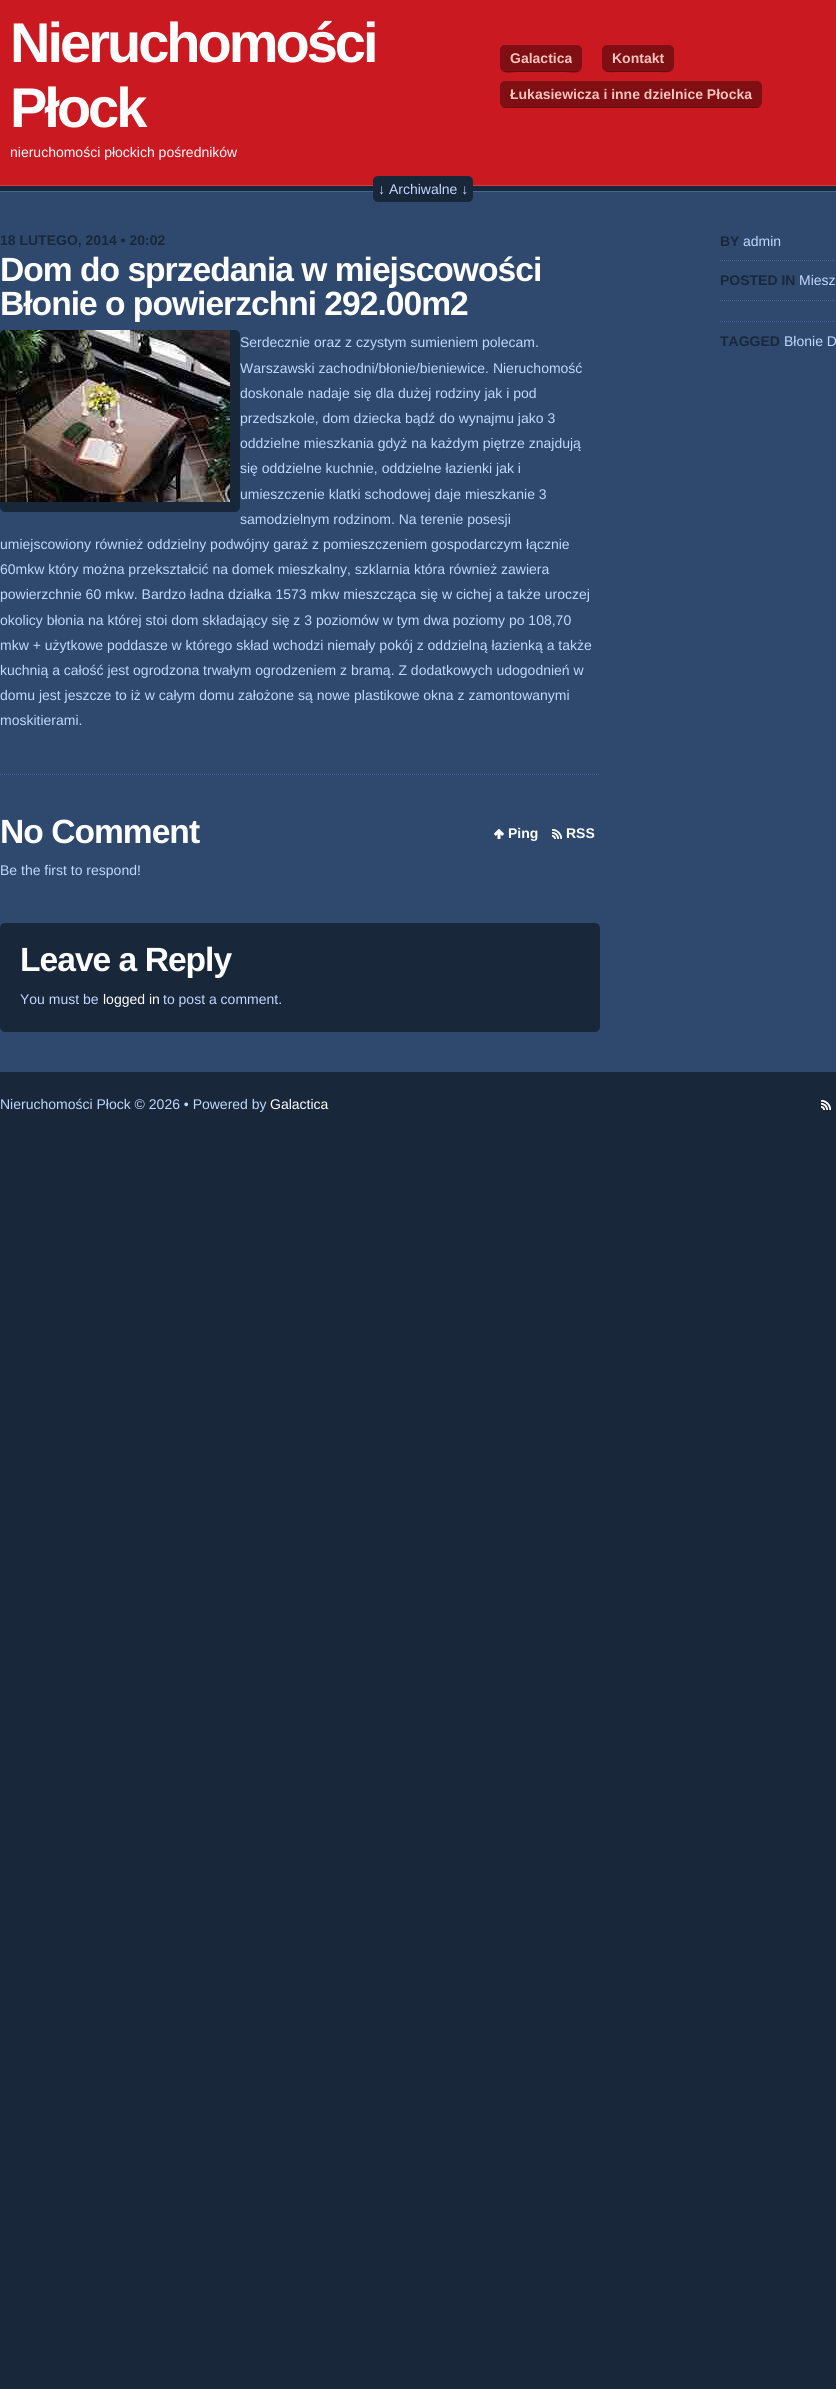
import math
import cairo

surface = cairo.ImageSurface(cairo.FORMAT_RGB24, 836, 2389)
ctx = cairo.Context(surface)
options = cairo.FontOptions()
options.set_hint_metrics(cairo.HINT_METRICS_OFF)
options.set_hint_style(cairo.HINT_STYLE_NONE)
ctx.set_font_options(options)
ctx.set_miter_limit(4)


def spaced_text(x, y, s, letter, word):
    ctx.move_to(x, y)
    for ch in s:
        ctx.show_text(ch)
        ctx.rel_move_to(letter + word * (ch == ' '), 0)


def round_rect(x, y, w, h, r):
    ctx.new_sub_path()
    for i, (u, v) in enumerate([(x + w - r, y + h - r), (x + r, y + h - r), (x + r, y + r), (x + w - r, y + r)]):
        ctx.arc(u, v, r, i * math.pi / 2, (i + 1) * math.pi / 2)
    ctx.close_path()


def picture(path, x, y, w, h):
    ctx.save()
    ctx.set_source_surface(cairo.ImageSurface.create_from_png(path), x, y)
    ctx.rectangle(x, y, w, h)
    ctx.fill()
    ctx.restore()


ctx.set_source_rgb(0.098, 0.153, 0.227)
ctx.paint()
ctx.set_source_rgb(0.796, 0.098, 0.129)
ctx.rectangle(0, 0, 836, 185)
ctx.fill()
ctx.set_source_rgb(0.796, 0.263, 0.286)
ctx.rectangle(0, 185, 836, 1)
ctx.fill()
ctx.select_font_face("Liberation Sans", cairo.FONT_SLANT_NORMAL, cairo.FONT_WEIGHT_BOLD)
ctx.set_font_size(56)
ctx.set_source_rgb(1, 1, 1)
spaced_text(10, 62, "Nieruchomości", -3, 0)
spaced_text(10, 127, "Płock", -3, 0)
ctx.select_font_face("Liberation Sans")
ctx.set_font_size(14)
ctx.move_to(10, 157)
ctx.show_text("nieruchomości płockich pośredników")
ctx.set_source_rgb(0.4, 0.051, 0.067)
ctx.new_path()
ctx.move_to(500, 66)
ctx.curve_to(500, 75, 511, 72, 517, 72)
ctx.line_to(565, 72)
ctx.curve_to(571, 72, 582, 75, 582, 66)
ctx.curve_to(582, 69, 580, 71, 577, 71)
ctx.line_to(505, 71)
ctx.curve_to(502, 71, 500, 69, 500, 66)
ctx.close_path()
ctx.fill()
ctx.set_source_rgb(0.498, 0.059, 0.078)
round_rect(500, 45, 82, 26, 5)
ctx.fill()
ctx.select_font_face("Liberation Sans", cairo.FONT_SLANT_NORMAL, cairo.FONT_WEIGHT_BOLD)
ctx.set_source_rgb(1, 0.769, 0.745)
ctx.move_to(510, 63)
ctx.show_text("Galactica")
ctx.set_source_rgb(0.4, 0.051, 0.067)
ctx.new_path()
ctx.move_to(602, 66)
ctx.curve_to(602, 74, 612, 72, 617, 72)
ctx.line_to(659, 72)
ctx.curve_to(664, 72, 674, 74, 674, 66)
ctx.curve_to(674, 69, 672, 71, 669, 71)
ctx.line_to(607, 71)
ctx.curve_to(604, 71, 602, 69, 602, 66)
ctx.close_path()
ctx.fill()
ctx.set_source_rgb(0.498, 0.059, 0.078)
round_rect(602, 45, 72, 26, 5)
ctx.fill()
ctx.set_source_rgb(1, 0.769, 0.745)
ctx.move_to(612, 63)
ctx.show_text("Kontakt")
ctx.set_source_rgb(0.4, 0.051, 0.067)
ctx.new_path()
ctx.move_to(500, 102)
ctx.curve_to(500, 105, 502, 108, 505, 108)
ctx.line_to(757, 108)
ctx.curve_to(760, 108, 762, 105, 762, 102)
ctx.curve_to(762, 105, 760, 107, 757, 107)
ctx.line_to(505, 107)
ctx.curve_to(502, 107, 500, 105, 500, 102)
ctx.close_path()
ctx.fill()
ctx.set_source_rgb(0.498, 0.059, 0.078)
round_rect(500, 81, 262, 26, 5)
ctx.fill()
ctx.set_source_rgb(1, 0.769, 0.745)
ctx.move_to(510, 99)
ctx.show_text("Łukasiewicza i inne dzielnice Płocka")
ctx.set_source_rgb(0.18, 0.286, 0.427)
ctx.rectangle(0, 192, 836, 880)
ctx.fill()
ctx.set_source_rgb(0.255, 0.404, 0.604)
ctx.rectangle(0, 191, 836, 1)
ctx.fill()
ctx.set_source_rgb(0.098, 0.153, 0.227)
round_rect(373, 176, 100, 26, 5)
ctx.fill()
ctx.select_font_face("Liberation Sans")
ctx.set_source_rgb(0.761, 0.843, 1)
ctx.move_to(378, 194)
ctx.show_text("↓ Archiwalne ↓")
ctx.select_font_face("Liberation Sans", cairo.FONT_SLANT_NORMAL, cairo.FONT_WEIGHT_BOLD)
ctx.set_source_rgb(0.098, 0.153, 0.227)
ctx.move_to(0, 245)
ctx.show_text("18 LUTEGO, 2014 • 20:02")
ctx.set_font_size(33.6)
ctx.set_source_rgb(1, 1, 1)
spaced_text(0, 281, "Dom do sprzedania w miejscowości", -1, 0)
spaced_text(0, 315, "Błonie o powierzchni 292.00m2", -1, 0)
ctx.set_source_rgb(0.098, 0.153, 0.227)
round_rect(0, 330, 240, 182, 5)
ctx.fill()
picture("img1.png", 0, 330, 230, 172)
ctx.select_font_face("Liberation Sans")
ctx.set_font_size(14)
ctx.set_source_rgb(0.761, 0.843, 1)
ctx.move_to(240, 347)
ctx.show_text("Serdecznie oraz z czystym sumieniem polecam.")
ctx.move_to(240, 373)
ctx.show_text("Warszawski zachodni/błonie/bieniewice. Nieruchomość")
ctx.move_to(240, 398)
ctx.show_text("doskonale nadaje się dla dużej rodziny jak i pod")
ctx.move_to(240, 423)
ctx.show_text("przedszkole, dom dziecka bądź do wynajmu jako 3")
ctx.move_to(240, 448)
ctx.show_text("oddzielne mieszkania gdyż na każdym piętrze znajdują")
ctx.move_to(240, 473)
ctx.show_text("się oddzielne kuchnie, oddzielne łazienki jak i")
ctx.move_to(240, 499)
ctx.show_text("umieszczenie klatki schodowej daje mieszkanie 3")
ctx.move_to(240, 524)
ctx.show_text("samodzielnym rodzinom. Na terenie posesji")
ctx.move_to(0, 549)
ctx.show_text("umiejscowiony również oddzielny podwójny garaż z pomieszczeniem gospodarczym łącznie")
ctx.move_to(0, 574)
ctx.show_text("60mkw który można przekształcić na domek mieszkalny, szklarnia która również zawiera")
ctx.move_to(0, 599)
ctx.show_text("powierzchnie 60 mkw. Bardzo ładna działka 1573 mkw mieszcząca się w cichej a także uroczej")
ctx.move_to(0, 625)
ctx.show_text("okolicy błonia na której stoi dom składający się z 3 poziomów w tym dwa poziomy po 108,70")
ctx.move_to(0, 650)
ctx.show_text("mkw + użytkowe poddasze w którego skład wchodzi niemały pokój z oddzielną łazienką a także")
ctx.move_to(0, 675)
ctx.show_text("kuchnią a całość jest ogrodzona trwałym ogrodzeniem z bramą. Z dodatkowych udogodnień w")
ctx.move_to(0, 700)
ctx.show_text("domu jest jeszcze to iż w całym domu założone są nowe plastikowe okna z zamontowanymi")
ctx.move_to(0, 725)
ctx.show_text("moskitierami.")
ctx.new_path()
ctx.move_to(0, 774.5)
ctx.line_to(600, 774.5)
ctx.set_source_rgb(0.255, 0.404, 0.604)
ctx.set_line_width(1)
ctx.set_dash([1, 1])
ctx.stroke()
ctx.select_font_face("Liberation Sans", cairo.FONT_SLANT_NORMAL, cairo.FONT_WEIGHT_BOLD)
ctx.set_font_size(33.6)
ctx.set_source_rgb(1, 1, 1)
spaced_text(0, 843, "No Comment", -1, 0)
picture("img2.png", 494, 829, 10, 10)
ctx.set_font_size(14)
ctx.move_to(508, 838)
ctx.show_text("Ping")
picture("img3.png", 552, 829, 10, 10)
ctx.move_to(566, 838)
ctx.show_text("RSS")
ctx.select_font_face("Liberation Sans")
ctx.set_source_rgb(0.761, 0.843, 1)
ctx.move_to(0, 875)
ctx.show_text("Be the first to respond!")
ctx.set_source_rgb(0.098, 0.153, 0.227)
round_rect(0, 923, 600, 109, 5)
ctx.fill()
ctx.select_font_face("Liberation Sans", cairo.FONT_SLANT_NORMAL, cairo.FONT_WEIGHT_BOLD)
ctx.set_font_size(33.6)
ctx.set_source_rgb(1, 1, 1)
spaced_text(20, 971, "Leave a Reply", -1, 0)
ctx.select_font_face("Liberation Sans")
ctx.set_font_size(14)
ctx.set_source_rgb(0.761, 0.843, 1)
ctx.move_to(20, 1004)
ctx.show_text("You must be")
ctx.set_source_rgb(1, 1, 1)
ctx.move_to(103, 1004)
ctx.show_text("logged in")
ctx.set_source_rgb(0.761, 0.843, 1)
ctx.move_to(163, 1004)
ctx.show_text("to post a comment.")
ctx.select_font_face("Liberation Sans", cairo.FONT_SLANT_NORMAL, cairo.FONT_WEIGHT_BOLD)
ctx.set_source_rgb(0.098, 0.153, 0.227)
ctx.move_to(720, 246)
ctx.show_text("BY")
ctx.select_font_face("Liberation Sans")
ctx.set_source_rgb(0.761, 0.843, 1)
ctx.move_to(743, 246)
ctx.show_text("admin")
ctx.new_path()
ctx.move_to(720, 260.5)
ctx.line_to(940, 260.5)
ctx.set_source_rgb(0.255, 0.404, 0.604)
ctx.stroke()
ctx.select_font_face("Liberation Sans", cairo.FONT_SLANT_NORMAL, cairo.FONT_WEIGHT_BOLD)
ctx.set_source_rgb(0.098, 0.153, 0.227)
ctx.move_to(720, 285)
ctx.show_text("POSTED IN")
ctx.select_font_face("Liberation Sans")
ctx.set_source_rgb(0.761, 0.843, 1)
ctx.move_to(799, 285)
ctx.show_text("Miesz")
ctx.new_path()
ctx.move_to(720, 300.5)
ctx.line_to(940, 300.5)
ctx.set_source_rgb(0.255, 0.404, 0.604)
ctx.stroke()
ctx.new_path()
ctx.move_to(720, 321.5)
ctx.line_to(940, 321.5)
ctx.stroke()
ctx.select_font_face("Liberation Sans", cairo.FONT_SLANT_NORMAL, cairo.FONT_WEIGHT_BOLD)
ctx.set_source_rgb(0.098, 0.153, 0.227)
ctx.move_to(720, 346)
ctx.show_text("TAGGED")
ctx.select_font_face("Liberation Sans")
ctx.set_source_rgb(0.761, 0.843, 1)
ctx.move_to(784, 346)
ctx.show_text("Błonie D")
ctx.move_to(0, 1109)
ctx.show_text("Nieruchomości Płock © 2026 • Powered by")
ctx.set_source_rgb(1, 1, 1)
ctx.move_to(270, 1109)
ctx.show_text("Galactica")
picture("img4.png", 821, 1100, 10, 10)
surface.write_to_png("page.png")
